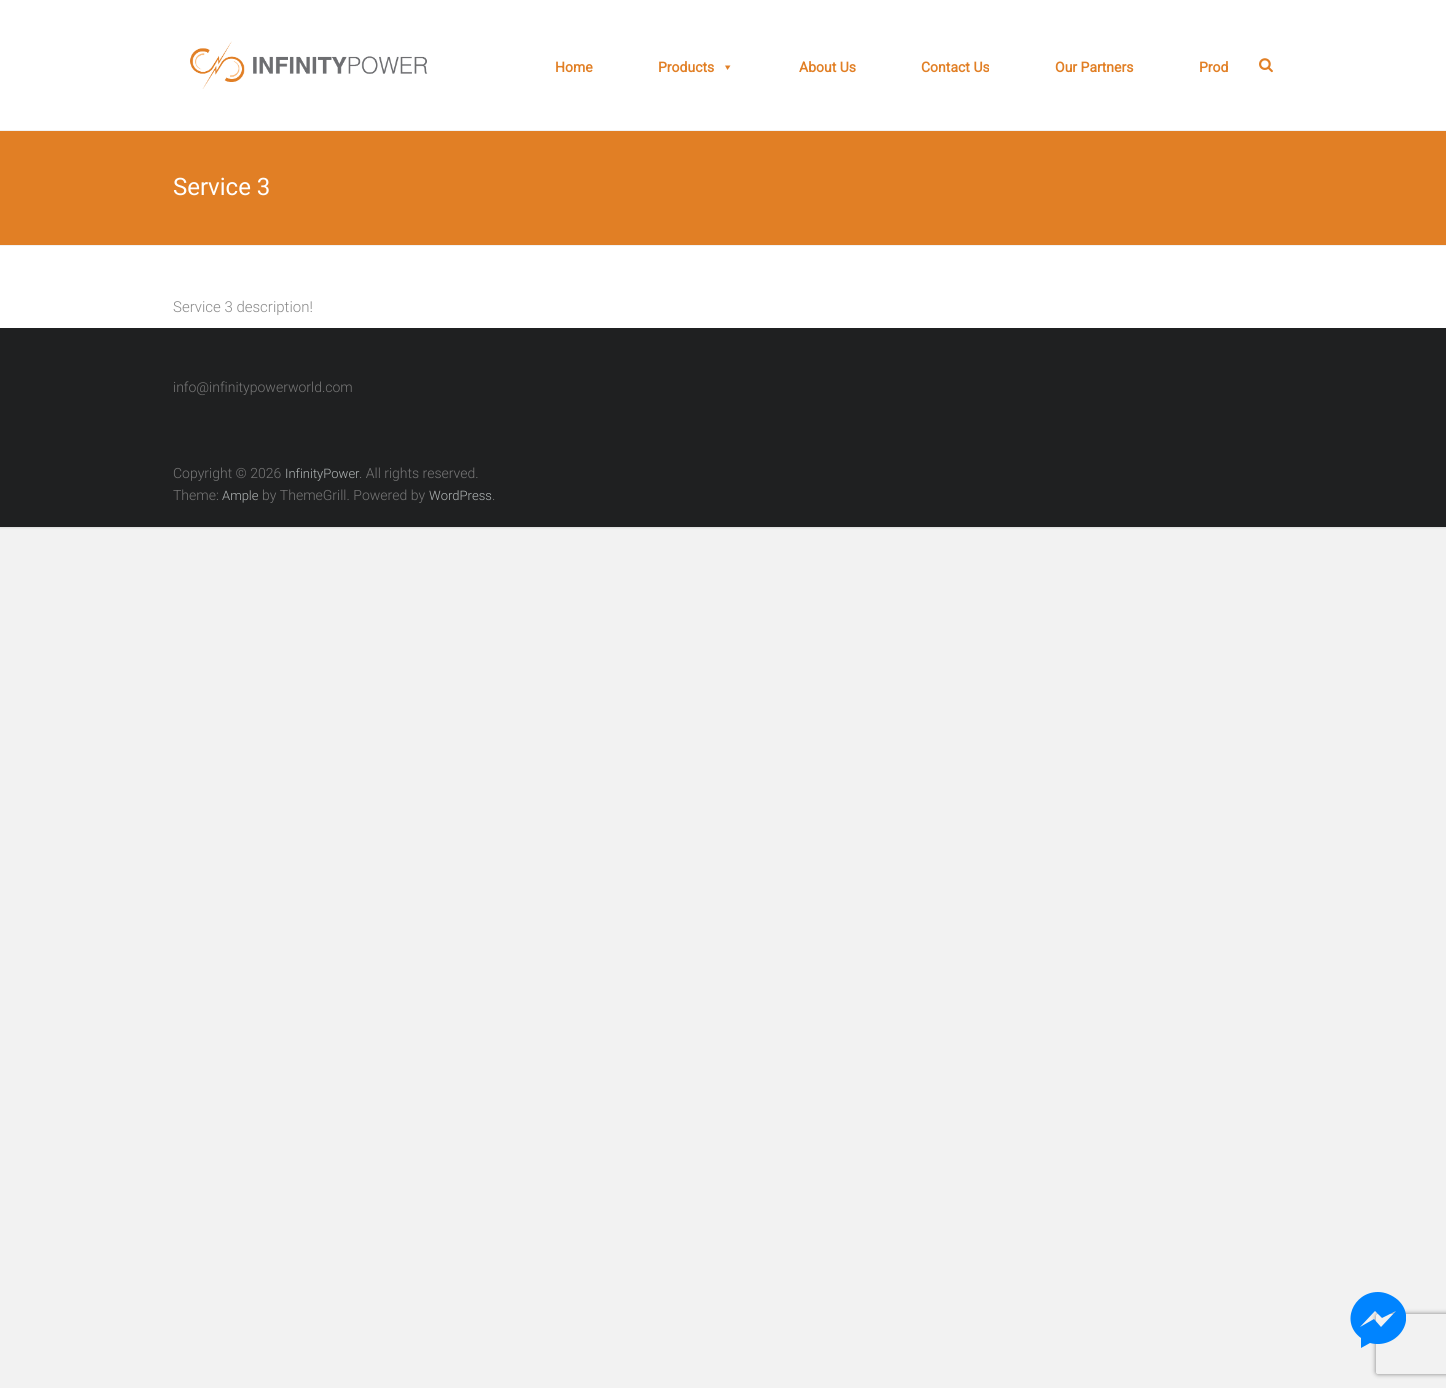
import math
import cairo

surface = cairo.ImageSurface(cairo.FORMAT_RGB24, 1446, 1388)
ctx = cairo.Context(surface)
options = cairo.FontOptions()
options.set_hint_metrics(cairo.HINT_METRICS_OFF)
options.set_hint_style(cairo.HINT_STYLE_NONE)
ctx.set_font_options(options)
ctx.set_miter_limit(4)


def round_rect(x, y, w, h, r):
    ctx.new_sub_path()
    for i, (u, v) in enumerate([(x + w - r, y + h - r), (x + r, y + h - r), (x + r, y + r), (x + w - r, y + r)]):
        ctx.arc(u, v, r, i * math.pi / 2, (i + 1) * math.pi / 2)
    ctx.close_path()


def shadow(x, y, w, h, r, blur, alpha):
    ctx.push_group_with_content(cairo.CONTENT_ALPHA)
    ctx.set_operator(cairo.OPERATOR_SOURCE)
    for i in range(15, -16, -2):
        e = blur * i / 6
        if min(w, h) + 2 * e > 0:
            ctx.set_source_rgba(0, 0, 0, alpha * math.erfc((i - 1) / 8.5) / 2)
            round_rect(x - e, y - e, w + 2 * e, h + 2 * e, max(0, min(r + e + blur * .6, min(w, h) / 2 + e)))
            ctx.fill()
    ctx.mask(ctx.pop_group())


def picture(path, x, y, w, h):
    ctx.save()
    ctx.set_source_surface(cairo.ImageSurface.create_from_png(path), x, y)
    ctx.rectangle(x, y, w, h)
    ctx.fill()
    ctx.restore()


ctx.set_source_rgb(0.949, 0.949, 0.949)
ctx.paint()
ctx.set_source_rgb(0, 0, 0)
shadow(0, 1, 1446, 527, 0, 1, 0.1)
ctx.set_source_rgb(1, 1, 1)
ctx.rectangle(0, 0, 1446, 328)
ctx.fill()
ctx.set_source_rgb(0.949, 0.949, 0.949)
ctx.rectangle(0, 130, 1446, 1)
ctx.fill()
picture("img1.png", 190, 41, 238, 48)
ctx.select_font_face("Roboto", cairo.FONT_SLANT_NORMAL, cairo.FONT_WEIGHT_BOLD)
ctx.set_font_size(14)
ctx.set_source_rgb(0.882, 0.498, 0.145)
ctx.move_to(555, 72)
ctx.show_text("Home")
ctx.move_to(658, 72)
ctx.show_text("Products")
ctx.new_path()
ctx.move_to(730.5, 65.5)
ctx.line_to(727.5, 70)
ctx.line_to(725, 65.5)
ctx.close_path()
ctx.fill()
ctx.move_to(799, 72)
ctx.show_text("About Us")
ctx.move_to(921, 72)
ctx.show_text("Contact Us")
ctx.move_to(1055, 72)
ctx.show_text("Our Partners")
ctx.move_to(1199, 72)
ctx.show_text("Prod")
picture("img2.png", 1259, 58, 14, 15)
ctx.rectangle(0, 131, 1446, 114)
ctx.fill()
ctx.set_source_rgb(0.949, 0.949, 0.949)
ctx.rectangle(0, 245, 1446, 1)
ctx.fill()
ctx.select_font_face("Roboto")
ctx.set_font_size(24)
ctx.set_source_rgb(1, 1, 1)
ctx.move_to(173, 195)
ctx.show_text("Service 3")
ctx.select_font_face("Roboto Light")
ctx.set_font_size(15)
ctx.set_source_rgb(0.533, 0.533, 0.533)
ctx.move_to(173, 312)
ctx.show_text("Service 3 description!")
ctx.set_source_rgb(0.122, 0.125, 0.129)
ctx.rectangle(0, 328, 1446, 199)
ctx.fill()
ctx.set_font_size(14)
ctx.set_source_rgb(0.467, 0.467, 0.467)
ctx.move_to(173, 392)
ctx.show_text("info@infinitypowerworld.com")
ctx.move_to(173, 478)
ctx.show_text("Copyright © 2026")
ctx.set_font_size(13)
ctx.set_source_rgb(0.694, 0.714, 0.714)
ctx.move_to(285, 478)
ctx.show_text("InfinityPower")
ctx.set_font_size(14)
ctx.set_source_rgb(0.467, 0.467, 0.467)
ctx.move_to(359, 478)
ctx.show_text(". All rights reserved.")
ctx.move_to(173, 500)
ctx.show_text("Theme:")
ctx.set_font_size(13)
ctx.set_source_rgb(0.694, 0.714, 0.714)
ctx.move_to(222, 500)
ctx.show_text("Ample")
ctx.set_font_size(14)
ctx.set_source_rgb(0.467, 0.467, 0.467)
ctx.move_to(262, 500)
ctx.show_text("by ThemeGrill. Powered by")
ctx.set_font_size(13)
ctx.set_source_rgb(0.694, 0.714, 0.714)
ctx.move_to(429, 500)
ctx.show_text("WordPress")
ctx.set_font_size(14)
ctx.set_source_rgb(0.467, 0.467, 0.467)
ctx.move_to(492, 500)
ctx.show_text(".")
ctx.save()
ctx.set_fill_rule(cairo.FILL_RULE_EVEN_ODD)
ctx.new_path()
ctx.move_to(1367, 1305)
ctx.line_to(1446, 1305)
ctx.line_to(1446, 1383)
ctx.line_to(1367, 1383)
ctx.close_path()
ctx.move_to(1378, 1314)
ctx.line_to(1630, 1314)
ctx.curve_to(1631, 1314, 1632, 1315, 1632, 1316)
ctx.line_to(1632, 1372)
ctx.curve_to(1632, 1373, 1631, 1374, 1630, 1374)
ctx.line_to(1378, 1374)
ctx.curve_to(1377, 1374, 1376, 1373, 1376, 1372)
ctx.line_to(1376, 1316)
ctx.curve_to(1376, 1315, 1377, 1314, 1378, 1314)
ctx.close_path()
ctx.clip()
ctx.set_source_rgb(0.502, 0.502, 0.502)
shadow(1376, 1314, 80, 60, 2, 2.5, 1)
ctx.restore()
ctx.save()
ctx.rectangle(1350, 1292, 56, 56)
ctx.clip()
ctx.set_source_rgb(0, 0.518, 1)
ctx.new_path()
ctx.move_to(1378, 1292)
ctx.curve_to(1353, 1292, 1340, 1323, 1361, 1338)
ctx.line_to(1361, 1348)
ctx.line_to(1370, 1343)
ctx.curve_to(1396, 1350, 1419, 1320, 1398, 1300)
ctx.curve_to(1392, 1295, 1385, 1292, 1378, 1292)
ctx.close_path()
ctx.move_to(1381, 1327)
ctx.line_to(1374, 1319)
ctx.line_to(1360, 1327)
ctx.line_to(1375, 1311)
ctx.line_to(1382, 1318)
ctx.line_to(1396, 1311)
ctx.close_path()
ctx.fill()
ctx.restore()
surface.write_to_png("page.png")
